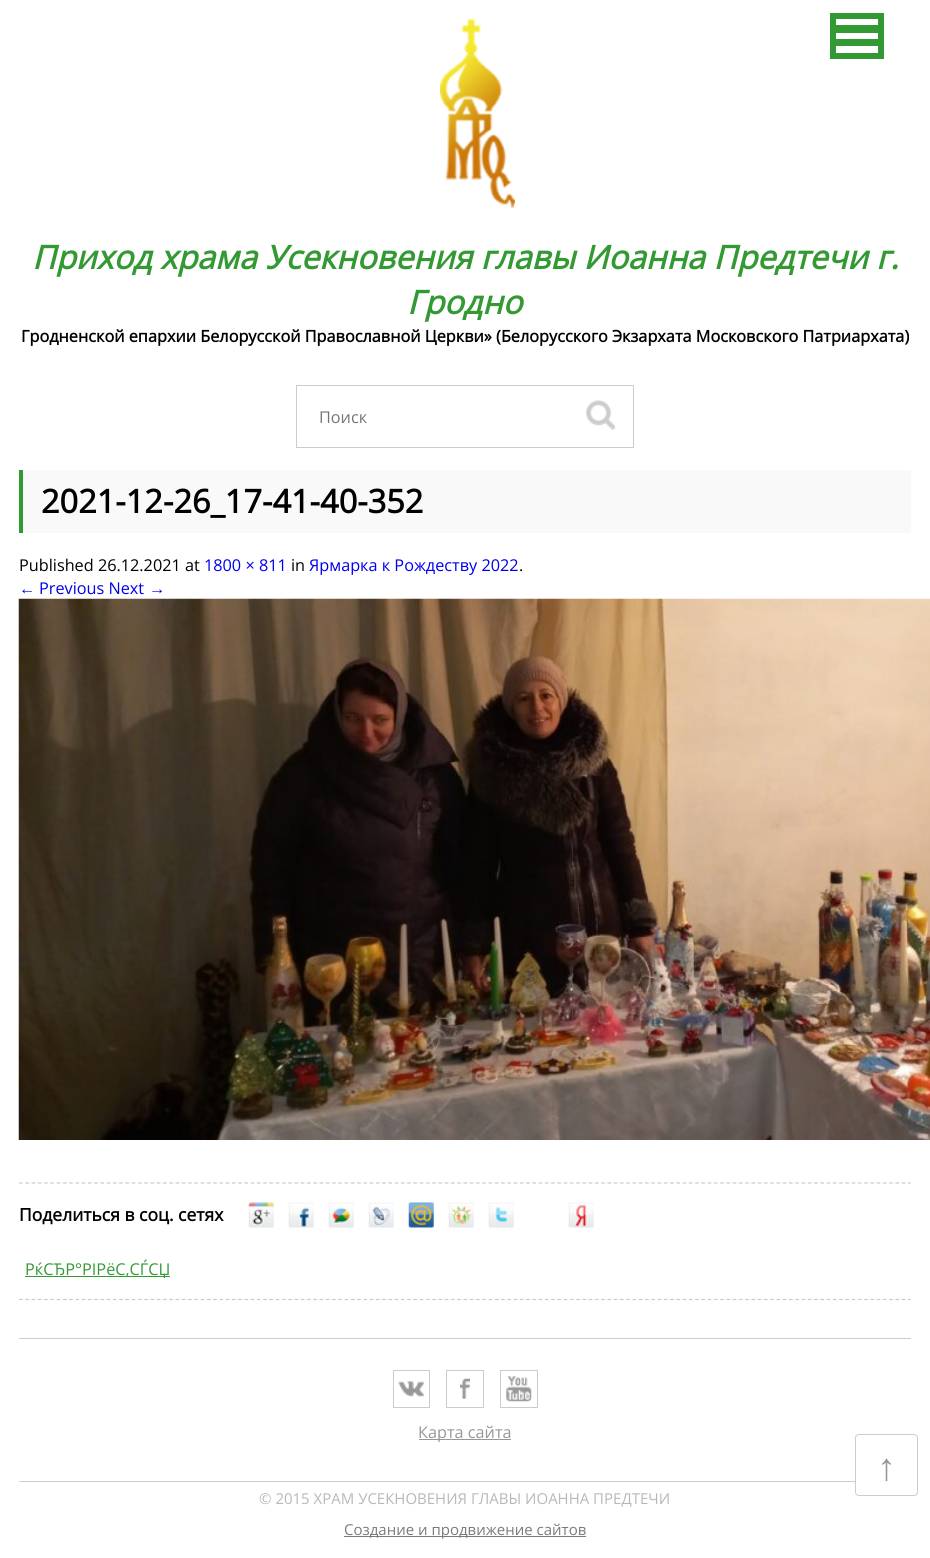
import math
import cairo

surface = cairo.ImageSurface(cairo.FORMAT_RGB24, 930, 1558)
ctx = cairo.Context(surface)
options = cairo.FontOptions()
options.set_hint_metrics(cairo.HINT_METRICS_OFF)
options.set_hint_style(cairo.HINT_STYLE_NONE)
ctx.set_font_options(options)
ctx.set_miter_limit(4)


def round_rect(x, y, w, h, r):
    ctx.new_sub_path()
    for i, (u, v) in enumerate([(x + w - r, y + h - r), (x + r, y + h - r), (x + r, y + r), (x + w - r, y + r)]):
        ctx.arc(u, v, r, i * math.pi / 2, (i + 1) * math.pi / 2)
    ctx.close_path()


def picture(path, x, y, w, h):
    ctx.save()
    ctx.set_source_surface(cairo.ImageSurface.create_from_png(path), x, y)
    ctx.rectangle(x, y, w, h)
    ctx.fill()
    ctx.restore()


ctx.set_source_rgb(1, 1, 1)
ctx.paint()
ctx.set_source_rgb(0.2, 0.6, 0.2)
ctx.rectangle(830, 13, 54, 46)
ctx.fill()
ctx.set_source_rgb(1, 1, 1)
ctx.rectangle(836, 19, 42, 6)
ctx.fill()
ctx.rectangle(836, 33, 42, 6)
ctx.fill()
ctx.rectangle(836, 46, 42, 7)
ctx.fill()
picture("img1.png", 440, 18, 75, 190)
ctx.select_font_face("Open Sans", cairo.FONT_SLANT_ITALIC, cairo.FONT_WEIGHT_BOLD)
ctx.set_font_size(32.5)
ctx.set_source_rgb(0.2, 0.6, 0.2)
ctx.move_to(32, 269)
ctx.show_text("Приход храма Усекновения главы Иоанна Предтечи г.")
ctx.move_to(407, 314)
ctx.show_text("Гродно")
ctx.select_font_face("Open Sans", cairo.FONT_SLANT_NORMAL, cairo.FONT_WEIGHT_BOLD)
ctx.set_font_size(16.25)
ctx.set_source_rgb(0, 0, 0)
ctx.move_to(21, 342)
ctx.show_text("Гродненской епархии Белорусской Православной Церкви» (Белорусского Экзархата Московского Патриархата)")
ctx.rectangle(296.5, 385.5, 337, 62)
ctx.set_source_rgb(0.8, 0.8, 0.8)
ctx.set_line_width(1)
ctx.stroke()
ctx.select_font_face("Open Sans")
ctx.set_source_rgb(0.459, 0.459, 0.459)
ctx.move_to(319, 423)
ctx.show_text("Поиск")
picture("img2.png", 586, 400, 30, 30)
ctx.set_source_rgb(0.976, 0.976, 0.976)
ctx.rectangle(23, 470, 888, 63)
ctx.fill()
ctx.set_source_rgb(0.2, 0.6, 0.2)
ctx.rectangle(19, 470, 4, 63)
ctx.fill()
ctx.select_font_face("Open Sans", cairo.FONT_SLANT_NORMAL, cairo.FONT_WEIGHT_BOLD)
ctx.set_font_size(32.5)
ctx.set_source_rgb(0, 0, 0)
ctx.move_to(41, 513)
ctx.show_text("2021-12-26_17-41-40-352")
ctx.select_font_face("Open Sans")
ctx.set_font_size(16.25)
ctx.move_to(19, 571)
ctx.show_text("Published 26.12.2021 at")
ctx.set_source_rgb(0, 0, 0.933)
ctx.move_to(204, 571)
ctx.show_text("1800 × 811")
ctx.set_source_rgb(0, 0, 0)
ctx.move_to(291, 571)
ctx.show_text("in")
ctx.set_source_rgb(0, 0, 0.933)
ctx.move_to(309, 571)
ctx.show_text("Ярмарка к Рождеству 2022")
ctx.set_source_rgb(0, 0, 0)
ctx.move_to(519, 571)
ctx.show_text(".")
ctx.select_font_face("Liberation Sans")
ctx.set_source_rgb(0, 0, 0.933)
ctx.move_to(19, 594)
ctx.show_text("←")
ctx.select_font_face("Open Sans")
ctx.move_to(39, 594)
ctx.show_text("Previous Next")
ctx.select_font_face("Liberation Sans")
ctx.move_to(149, 594)
ctx.show_text("→")
picture("img3.png", 18, 598, 912, 542)
ctx.new_path()
ctx.move_to(19, 1183)
ctx.line_to(911, 1183)
ctx.set_source_rgb(0.8, 0.8, 0.8)
ctx.set_line_width(1.2)
ctx.set_dash([3.75, 2.51])
ctx.stroke()
ctx.new_path()
ctx.move_to(19, 1299.5)
ctx.line_to(911, 1299.5)
ctx.stroke()
ctx.select_font_face("Open Sans", cairo.FONT_SLANT_NORMAL, cairo.FONT_WEIGHT_BOLD)
ctx.set_font_size(17.5)
ctx.set_source_rgb(0, 0, 0)
ctx.move_to(19, 1221)
ctx.show_text("Поделиться в соц. сетях")
picture("img4.png", 248, 1202, 26, 26)
picture("img5.png", 288, 1202, 26, 26)
picture("img6.png", 328, 1202, 26, 26)
picture("img7.png", 368, 1202, 26, 26)
picture("img8.png", 408, 1202, 26, 26)
picture("img9.png", 448, 1202, 26, 26)
picture("img10.png", 488, 1202, 26, 26)
picture("img11.png", 568, 1202, 26, 26)
ctx.set_source_rgb(0.2, 0.6, 0.2)
ctx.rectangle(25, 1276, 145, 1)
ctx.fill()
ctx.select_font_face("Open Sans")
ctx.set_font_size(16.25)
ctx.move_to(25, 1275)
ctx.show_text("РќСЂР°РІРёС‚СЃСЏ")
ctx.set_source_rgb(0.8, 0.8, 0.8)
ctx.rectangle(19, 1338, 892, 1)
ctx.fill()
ctx.rectangle(19, 1481, 836, 1)
ctx.fill()
picture("img12.png", 398, 1381, 26, 16)
ctx.rectangle(393.5, 1370.5, 36, 37)
ctx.set_line_width(1)
ctx.set_dash([])
ctx.stroke()
picture("img13.png", 460, 1378, 10, 21)
ctx.rectangle(446.5, 1370.5, 37, 37)
ctx.stroke()
picture("img14.png", 506, 1376, 26, 26)
ctx.rectangle(500.5, 1370.5, 37, 37)
ctx.stroke()
ctx.set_source_rgb(0.592, 0.592, 0.592)
ctx.rectangle(419, 1439, 92, 1)
ctx.fill()
ctx.move_to(418, 1438)
ctx.show_text("Карта сайта")
ctx.set_font_size(15)
ctx.set_source_rgb(0.725, 0.722, 0.722)
ctx.move_to(259, 1504)
ctx.show_text("© 2015 ХРАМ УСЕКНОВЕНИЯ ГЛАВЫ ИОАННА ПРЕДТЕЧИ")
ctx.set_source_rgb(0.482, 0.482, 0.482)
ctx.rectangle(344, 1536, 242, 1)
ctx.fill()
ctx.move_to(344, 1535)
ctx.show_text("Cоздание и продвижение сайтов")
round_rect(855.5, 1434.5, 62, 61, 3.5)
ctx.set_source_rgb(0.8, 0.8, 0.8)
ctx.stroke()
ctx.select_font_face("Liberation Sans")
ctx.set_font_size(38)
ctx.set_source_rgb(0.592, 0.592, 0.592)
ctx.move_to(877, 1480)
ctx.show_text("↑")
surface.write_to_png("page.png")
